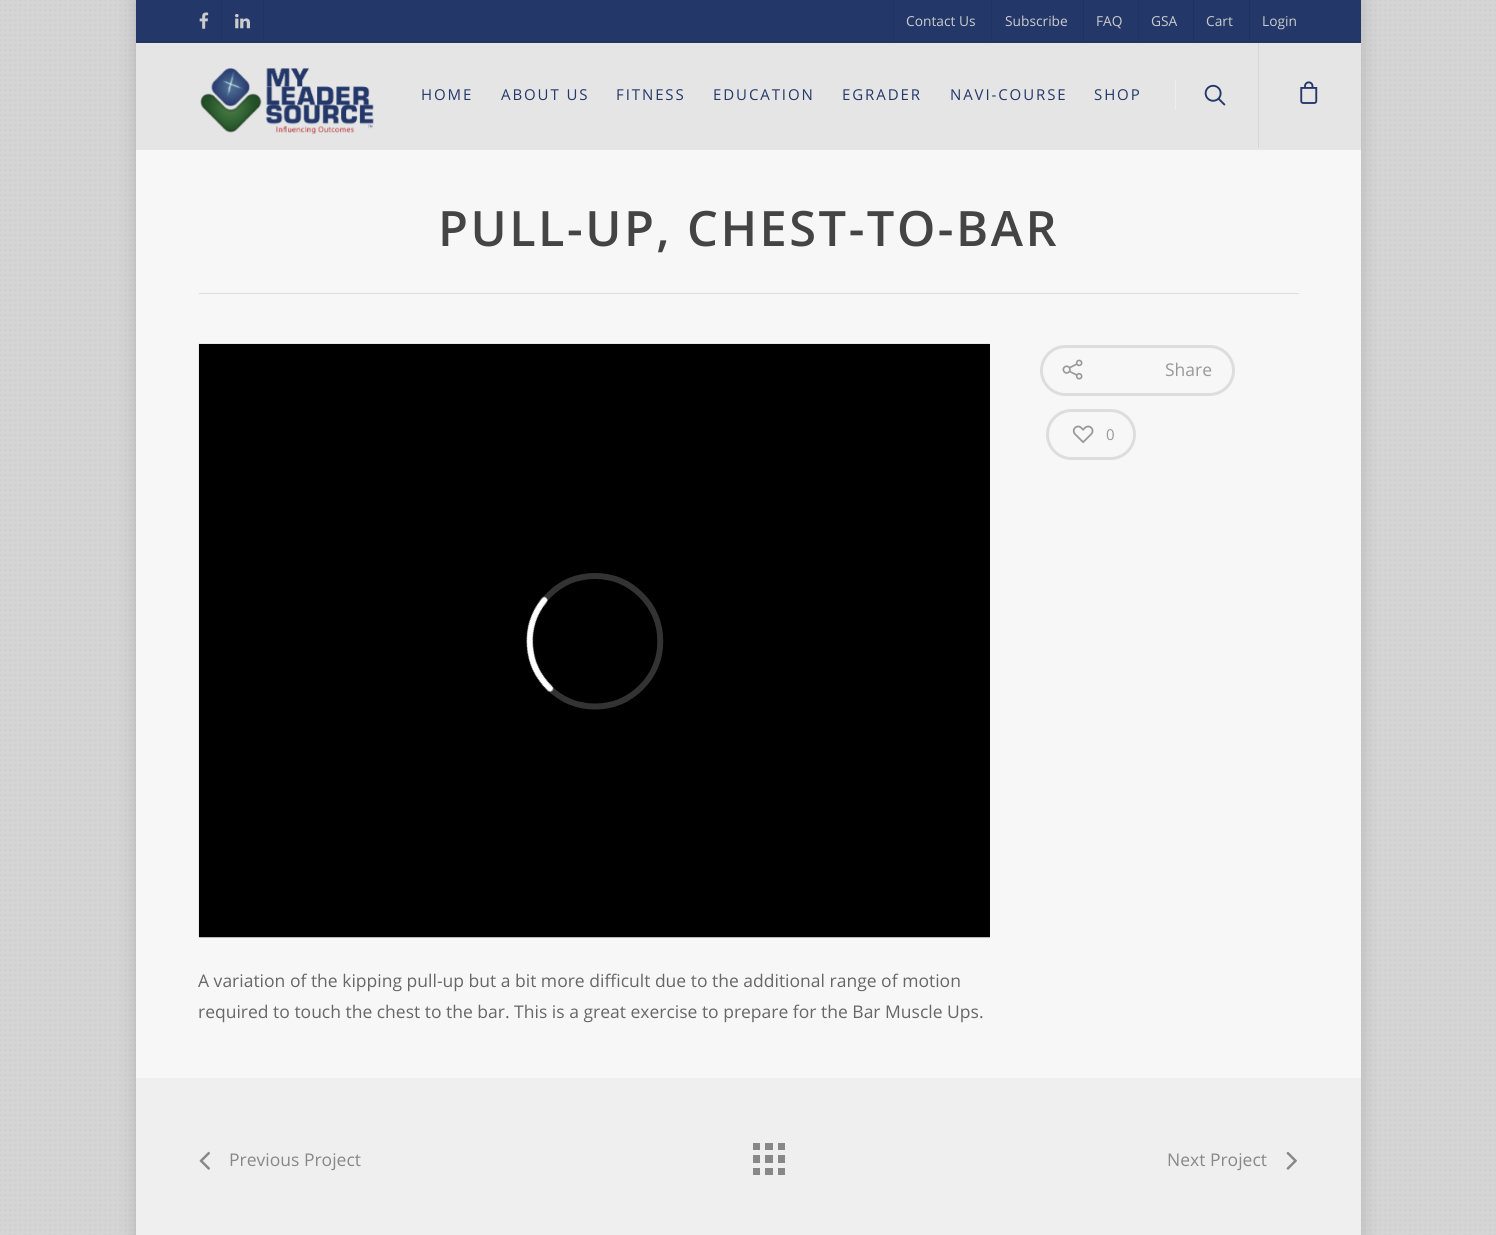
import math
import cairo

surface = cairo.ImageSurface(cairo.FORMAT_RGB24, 1496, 1235)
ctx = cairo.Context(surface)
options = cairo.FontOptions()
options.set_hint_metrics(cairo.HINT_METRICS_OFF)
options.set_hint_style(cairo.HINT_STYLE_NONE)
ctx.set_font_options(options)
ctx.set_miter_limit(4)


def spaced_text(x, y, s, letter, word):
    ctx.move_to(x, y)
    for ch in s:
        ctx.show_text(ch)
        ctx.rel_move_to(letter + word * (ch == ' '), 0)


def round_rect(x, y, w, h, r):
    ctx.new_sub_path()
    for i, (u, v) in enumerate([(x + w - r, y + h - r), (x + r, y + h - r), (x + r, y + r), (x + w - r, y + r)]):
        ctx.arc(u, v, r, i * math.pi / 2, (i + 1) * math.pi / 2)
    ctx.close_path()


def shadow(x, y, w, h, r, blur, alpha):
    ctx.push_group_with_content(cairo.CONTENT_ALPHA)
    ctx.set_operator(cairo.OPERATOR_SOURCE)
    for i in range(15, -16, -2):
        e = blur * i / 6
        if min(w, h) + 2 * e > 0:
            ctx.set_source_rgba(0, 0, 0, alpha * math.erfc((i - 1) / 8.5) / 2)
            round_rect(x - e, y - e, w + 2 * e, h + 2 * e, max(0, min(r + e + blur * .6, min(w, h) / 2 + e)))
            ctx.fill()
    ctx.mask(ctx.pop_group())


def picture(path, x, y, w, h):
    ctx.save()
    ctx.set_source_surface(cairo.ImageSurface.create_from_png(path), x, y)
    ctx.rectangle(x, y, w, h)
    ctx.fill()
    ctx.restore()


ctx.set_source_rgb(0.847, 0.847, 0.847)
ctx.paint()
picture("img1.png", 0, 0, 1496, 1235)
ctx.set_source_rgb(0, 0, 0)
shadow(136, 0, 1225, 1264, 0, 9.5, 0.15)
ctx.set_source_rgb(0.137, 0.216, 0.412)
ctx.rectangle(136, 0, 1225, 43)
ctx.fill()
ctx.set_source_rgb(0.125, 0.196, 0.373)
ctx.rectangle(136, 41, 1225, 1)
ctx.fill()
picture("img2.png", 199, 12, 10, 17)
ctx.rectangle(263, 0, 1, 40)
ctx.fill()
ctx.rectangle(221, 0, 1, 40)
ctx.fill()
picture("img3.png", 235, 14, 15, 15)
ctx.rectangle(893, 0, 1, 41)
ctx.fill()
ctx.select_font_face("Open Sans")
ctx.set_font_size(13.75)
ctx.set_source_rgb(0.8, 0.8, 0.8)
ctx.move_to(906, 26)
ctx.show_text("Contact Us")
ctx.set_source_rgb(0.125, 0.196, 0.373)
ctx.rectangle(991, 0, 1, 41)
ctx.fill()
ctx.set_source_rgb(0.8, 0.8, 0.8)
ctx.move_to(1005, 26)
ctx.show_text("Subscribe")
ctx.set_source_rgb(0.125, 0.196, 0.373)
ctx.rectangle(1083, 0, 1, 41)
ctx.fill()
ctx.set_source_rgb(0.8, 0.8, 0.8)
ctx.move_to(1096, 26)
ctx.show_text("FAQ")
ctx.set_source_rgb(0.125, 0.196, 0.373)
ctx.rectangle(1138, 0, 1, 41)
ctx.fill()
ctx.set_source_rgb(0.8, 0.8, 0.8)
ctx.move_to(1151, 26)
ctx.show_text("GSA")
ctx.set_source_rgb(0.125, 0.196, 0.373)
ctx.rectangle(1193, 0, 1, 41)
ctx.fill()
ctx.set_source_rgb(0.8, 0.8, 0.8)
ctx.move_to(1206, 26)
ctx.show_text("Cart")
ctx.set_source_rgb(0.125, 0.196, 0.373)
ctx.rectangle(1249, 0, 1, 41)
ctx.fill()
ctx.set_source_rgb(0.8, 0.8, 0.8)
ctx.move_to(1262, 26)
ctx.show_text("Login")
ctx.set_source_rgb(0.898, 0.898, 0.898)
ctx.rectangle(136, 43, 1225, 107)
ctx.fill()
picture("img4.png", 200, 68, 174, 66)
ctx.set_font_size(15)
ctx.set_source_rgb(0.137, 0.216, 0.412)
spaced_text(421, 100, "HOME", 1.9, 0)
spaced_text(501, 100, "ABOUT US", 1.9, 0)
spaced_text(616, 100, "FITNESS", 1.9, 0)
spaced_text(713, 100, "EDUCATION", 1.9, 0)
spaced_text(842, 100, "EGRADER", 1.9, 0)
spaced_text(950, 100, "NAVI-COURSE", 1.9, 0)
spaced_text(1094, 100, "SHOP", 1.9, 0)
ctx.set_source_rgb(0.933, 0.933, 0.933)
ctx.rectangle(1175, 80, 1, 30)
ctx.fill()
picture("img5.png", 1204, 84, 22, 22)
ctx.set_source_rgb(0.835, 0.835, 0.835)
ctx.rectangle(1258, 43, 1, 105)
ctx.fill()
picture("img6.png", 1300, 81, 18, 23)
ctx.set_source_rgb(0.965, 0.965, 0.965)
ctx.rectangle(136, 150, 1225, 928)
ctx.fill()
ctx.set_source_rgb(0.867, 0.867, 0.867)
ctx.rectangle(199, 293, 1100, 1)
ctx.fill()
ctx.select_font_face("Open Sans SemiBold")
ctx.set_font_size(48.75)
ctx.set_source_rgb(0.267, 0.267, 0.267)
spaced_text(438, 246, "PULL-UP, CHEST-TO-BAR", 2.5, 0)
round_rect(1041.5, 346.5, 192, 48, 24)
ctx.set_source_rgb(0.867, 0.867, 0.867)
ctx.set_line_width(3)
ctx.stroke()
picture("img7.png", 1062, 359, 21, 21)
ctx.select_font_face("Open Sans")
ctx.set_font_size(17.5)
ctx.set_source_rgb(0.6, 0.6, 0.6)
ctx.move_to(1165, 376)
ctx.show_text("Share")
round_rect(1047.5, 410.5, 87, 48, 24)
ctx.set_source_rgb(0.867, 0.867, 0.867)
ctx.stroke()
picture("img8.png", 1072, 425, 22, 19)
ctx.set_font_size(15)
ctx.set_source_rgb(0.6, 0.6, 0.6)
ctx.move_to(1106, 440)
ctx.show_text("0")
picture("img9.png", 198, 343, 792, 595)
ctx.set_font_size(17.5)
ctx.set_source_rgb(0.404, 0.404, 0.404)
ctx.move_to(198, 987)
ctx.show_text("A variation of the kipping pull-up but a bit more difficult due to the additional range of motion")
ctx.move_to(198, 1018)
ctx.show_text("required to touch the chest to the bar. This is a great exercise to prepare for the Bar Muscle Ups.")
ctx.set_source_rgb(0.937, 0.937, 0.937)
ctx.rectangle(136, 1078, 1225, 157)
ctx.fill()
ctx.set_source_rgb(0.533, 0.533, 0.533)
ctx.rectangle(778, 1168, 7, 7)
ctx.fill()
ctx.rectangle(765, 1168, 8, 7)
ctx.fill()
ctx.rectangle(753, 1143, 7, 7)
ctx.fill()
ctx.rectangle(765, 1143, 8, 7)
ctx.fill()
ctx.rectangle(778, 1143, 7, 7)
ctx.fill()
ctx.rectangle(778, 1155, 7, 8)
ctx.fill()
ctx.rectangle(753, 1168, 7, 7)
ctx.fill()
ctx.rectangle(753, 1155, 7, 8)
ctx.fill()
ctx.rectangle(765, 1155, 8, 8)
ctx.fill()
picture("img10.png", 199, 1151, 11, 19)
ctx.move_to(229, 1166)
ctx.show_text("Previous Project")
ctx.move_to(1167, 1166)
ctx.show_text("Next Project")
picture("img11.png", 1286, 1151, 11, 19)
surface.write_to_png("page.png")
